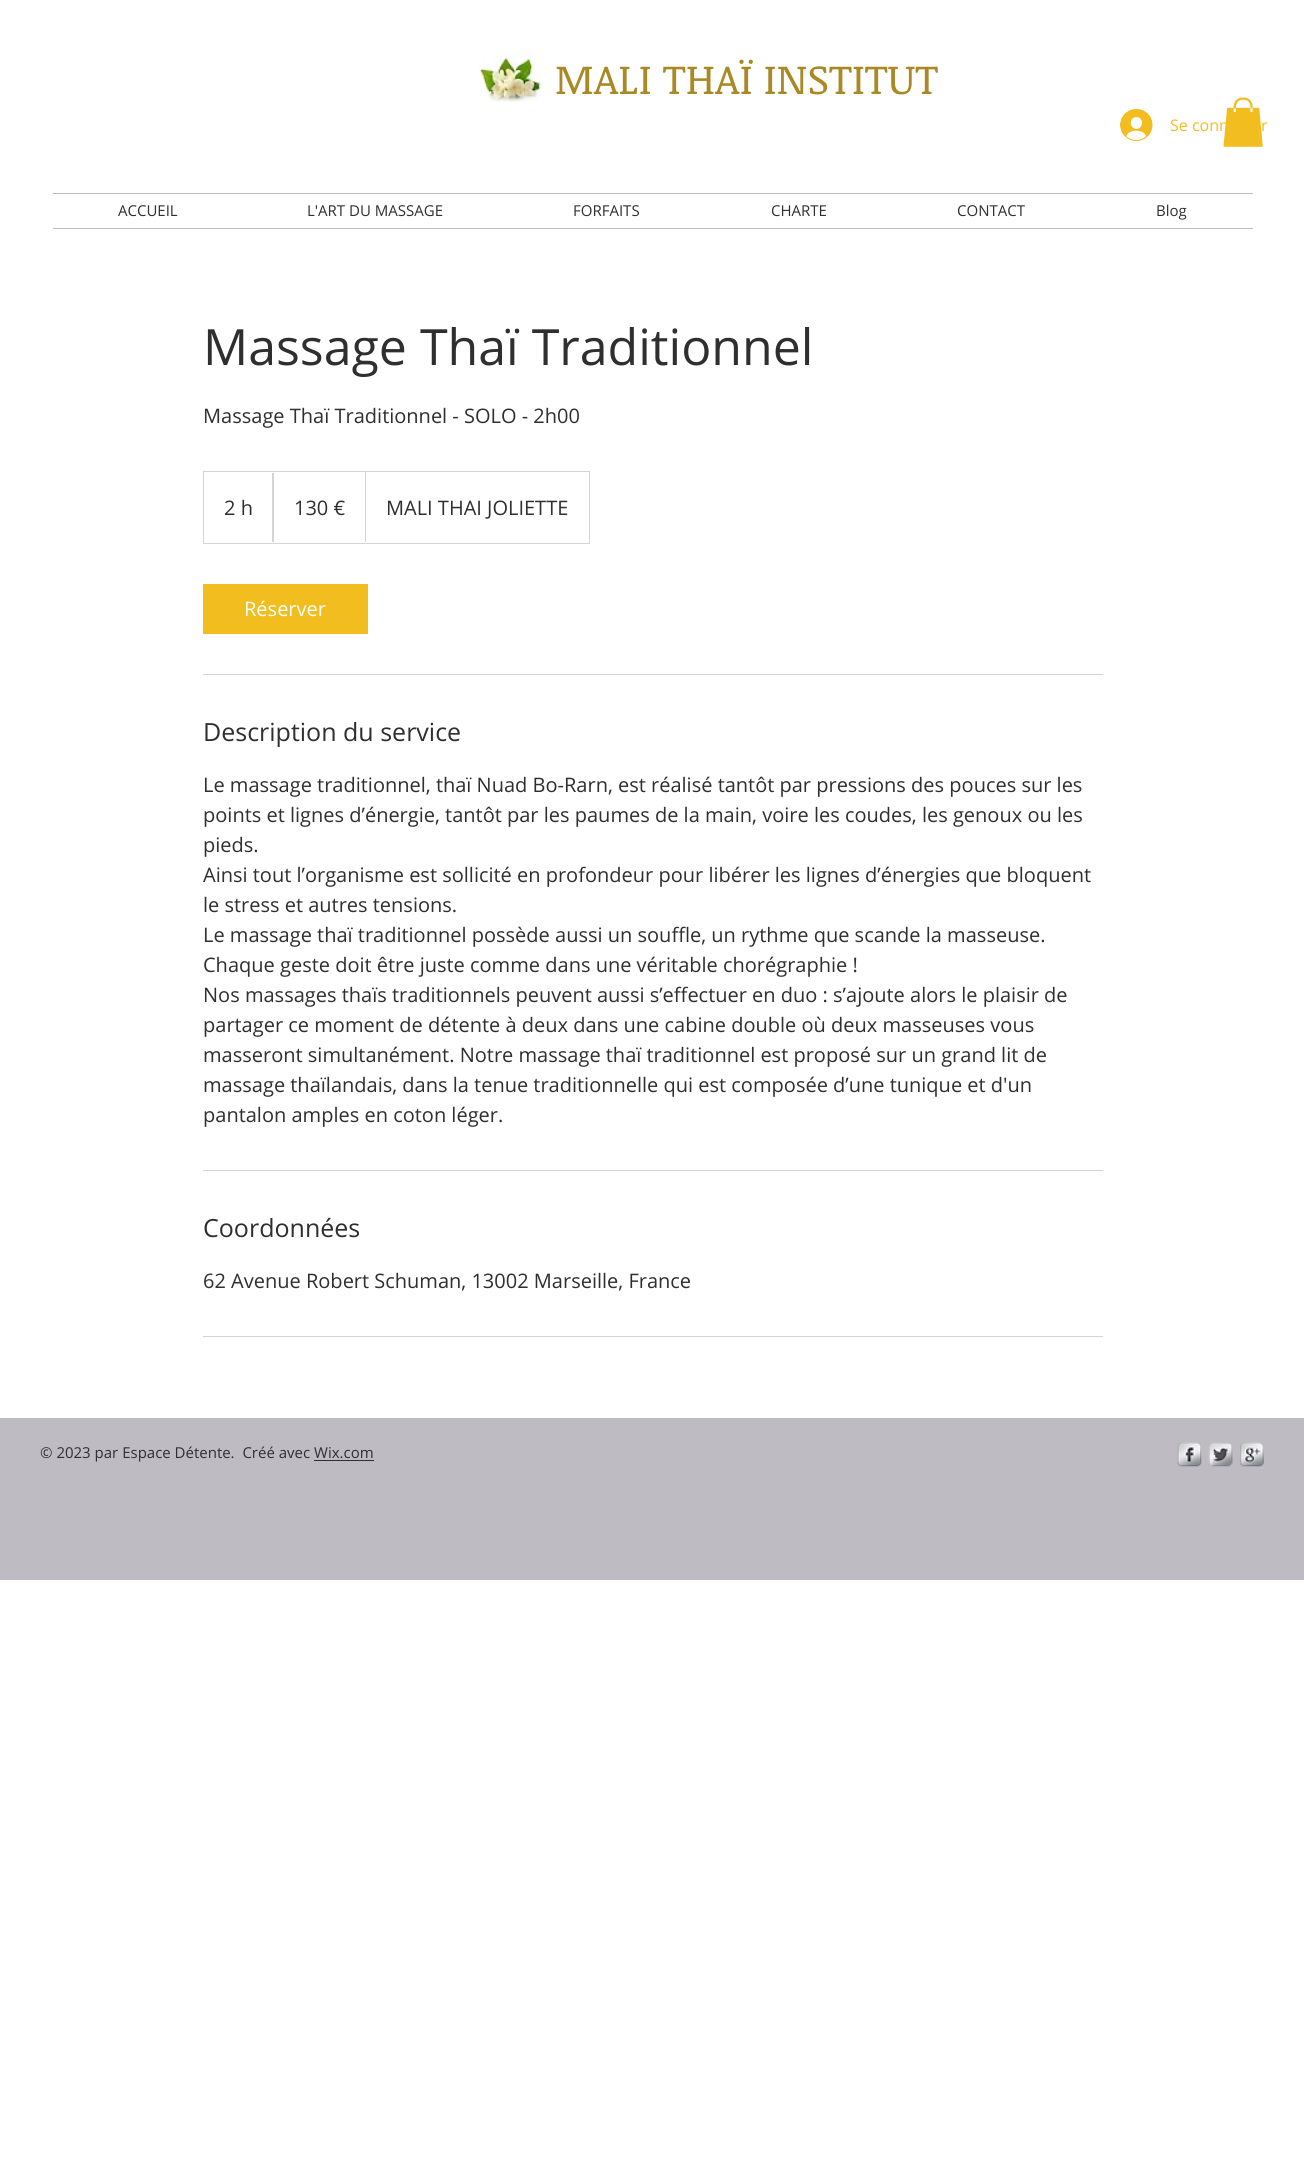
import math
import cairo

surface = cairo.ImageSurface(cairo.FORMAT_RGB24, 1304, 2170)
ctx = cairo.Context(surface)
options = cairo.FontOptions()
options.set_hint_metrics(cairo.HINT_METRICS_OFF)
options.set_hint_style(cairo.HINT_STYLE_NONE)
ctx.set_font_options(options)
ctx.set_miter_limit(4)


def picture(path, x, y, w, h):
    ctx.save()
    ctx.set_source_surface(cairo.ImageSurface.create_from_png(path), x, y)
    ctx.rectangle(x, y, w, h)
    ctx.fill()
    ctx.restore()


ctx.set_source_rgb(1, 1, 1)
ctx.paint()
picture("img1.png", 478, 51, 68, 51)
ctx.select_font_face("Noticia Text")
ctx.set_font_size(41.25)
ctx.set_source_rgb(0.667, 0.537, 0.145)
ctx.move_to(555, 94)
ctx.show_text("MALI THAÏ INSTITUT")
ctx.select_font_face("Open Sans")
ctx.set_font_size(16)
ctx.set_source_rgb(0.949, 0.741, 0.118)
ctx.move_to(1170, 131)
ctx.show_text("Se conn")
ctx.move_to(1261, 131)
ctx.show_text("r")
picture("img2.png", 1223, 97, 40, 50)
picture("img3.png", 1120, 109, 33, 32)
ctx.set_source_rgb(0.745, 0.737, 0.761)
ctx.rectangle(53, 193, 1200, 1)
ctx.fill()
ctx.rectangle(53, 228, 1200, 1)
ctx.fill()
ctx.set_font_size(15)
ctx.set_source_rgb(0.184, 0.184, 0.188)
ctx.move_to(118, 216)
ctx.show_text("ACCUEIL")
ctx.move_to(307, 216)
ctx.show_text("L'ART DU MASSAGE")
ctx.move_to(573, 216)
ctx.show_text("FORFAITS")
ctx.move_to(771, 216)
ctx.show_text("CHARTE")
ctx.move_to(957, 216)
ctx.show_text("CONTACT")
ctx.move_to(1156, 216)
ctx.show_text("Blog")
ctx.set_font_size(50)
ctx.move_to(203, 365)
ctx.show_text("Massage Thaï Traditionnel")
ctx.set_font_size(20)
ctx.move_to(203, 423)
ctx.show_text("Massage Thaï Traditionnel - SOLO - 2h00")
ctx.rectangle(203.5, 471.5, 386, 72)
ctx.set_source_rgb(0.835, 0.835, 0.839)
ctx.set_line_width(1)
ctx.stroke()
ctx.set_source_rgb(0.184, 0.184, 0.188)
ctx.move_to(224, 515)
ctx.show_text("2 h")
ctx.save()
ctx.rectangle(204, 473, 385, 70)
ctx.clip()
ctx.set_source_rgb(0.835, 0.835, 0.839)
ctx.new_path()
ctx.move_to(272, 542)
ctx.line_to(272, 471)
ctx.line_to(274, 472)
ctx.line_to(274, 542)
ctx.close_path()
ctx.fill()
ctx.restore()
ctx.move_to(294, 515)
ctx.show_text("130 €")
ctx.set_source_rgb(0.835, 0.835, 0.839)
ctx.new_path()
ctx.move_to(365, 542)
ctx.line_to(365, 471)
ctx.line_to(366, 472)
ctx.line_to(366, 542)
ctx.close_path()
ctx.fill()
ctx.set_source_rgb(0.184, 0.184, 0.188)
ctx.move_to(386, 515)
ctx.show_text("MALI THAI JOLIETTE")
ctx.set_source_rgb(0.949, 0.741, 0.118)
ctx.rectangle(203, 584, 165, 50)
ctx.fill()
ctx.set_source_rgb(1, 1, 1)
ctx.move_to(244, 616)
ctx.show_text("Réserver")
ctx.set_source_rgb(0.835, 0.835, 0.839)
ctx.rectangle(203, 674, 900, 1)
ctx.fill()
ctx.set_font_size(25)
ctx.set_source_rgb(0.184, 0.184, 0.188)
ctx.move_to(203, 741)
ctx.show_text("Description du service")
ctx.set_font_size(20)
ctx.move_to(203, 792)
ctx.show_text("Le massage traditionnel, thaï Nuad Bo-Rarn, est réalisé tantôt par pressions des pouces sur les")
ctx.move_to(203, 822)
ctx.show_text("points et lignes d’énergie, tantôt par les paumes de la main, voire les coudes, les genoux ou les")
ctx.move_to(203, 852)
ctx.show_text("pieds.")
ctx.move_to(203, 882)
ctx.show_text("Ainsi tout l’organisme est sollicité en profondeur pour libérer les lignes d’énergies que bloquent")
ctx.move_to(203, 912)
ctx.show_text("le stress et autres tensions.")
ctx.move_to(203, 942)
ctx.show_text("Le massage thaï traditionnel possède aussi un souffle, un rythme que scande la masseuse.")
ctx.move_to(203, 972)
ctx.show_text("Chaque geste doit être juste comme dans une véritable chorégraphie !")
ctx.move_to(203, 1002)
ctx.show_text("Nos massages thaïs traditionnels peuvent aussi s’effectuer en duo : s’ajoute alors le plaisir de")
ctx.move_to(203, 1032)
ctx.show_text("partager ce moment de détente à deux dans une cabine double où deux masseuses vous")
ctx.move_to(203, 1062)
ctx.show_text("masseront simultanément. Notre massage thaï traditionnel est proposé sur un grand lit de")
ctx.move_to(203, 1092)
ctx.show_text("massage thaïlandais, dans la tenue traditionnelle qui est composée d’une tunique et d'un")
ctx.move_to(203, 1122)
ctx.show_text("pantalon amples en coton léger.")
ctx.set_source_rgb(0.835, 0.835, 0.839)
ctx.rectangle(203, 1170, 900, 1)
ctx.fill()
ctx.set_font_size(25)
ctx.set_source_rgb(0.184, 0.184, 0.188)
ctx.move_to(203, 1237)
ctx.show_text("Coordonnées")
ctx.set_font_size(20)
ctx.move_to(203, 1288)
ctx.show_text("62 Avenue Robert Schuman, 13002 Marseille, France")
ctx.set_source_rgb(0.835, 0.835, 0.839)
ctx.rectangle(203, 1336, 900, 1)
ctx.fill()
ctx.set_source_rgb(0.745, 0.737, 0.761)
ctx.rectangle(0, 1418, 1304, 162)
ctx.fill()
ctx.set_font_size(15)
ctx.set_source_rgb(0.184, 0.184, 0.188)
ctx.move_to(40, 1458)
ctx.show_text("© 2023 par Espace Détente.  Créé avec Wix.com")
ctx.rectangle(314, 1460, 60, 1)
ctx.fill()
picture("img4.png", 1177, 1442, 25, 25)
picture("img5.png", 1208, 1442, 25, 25)
picture("img6.png", 1240, 1442, 24, 25)
surface.write_to_png("page.png")
